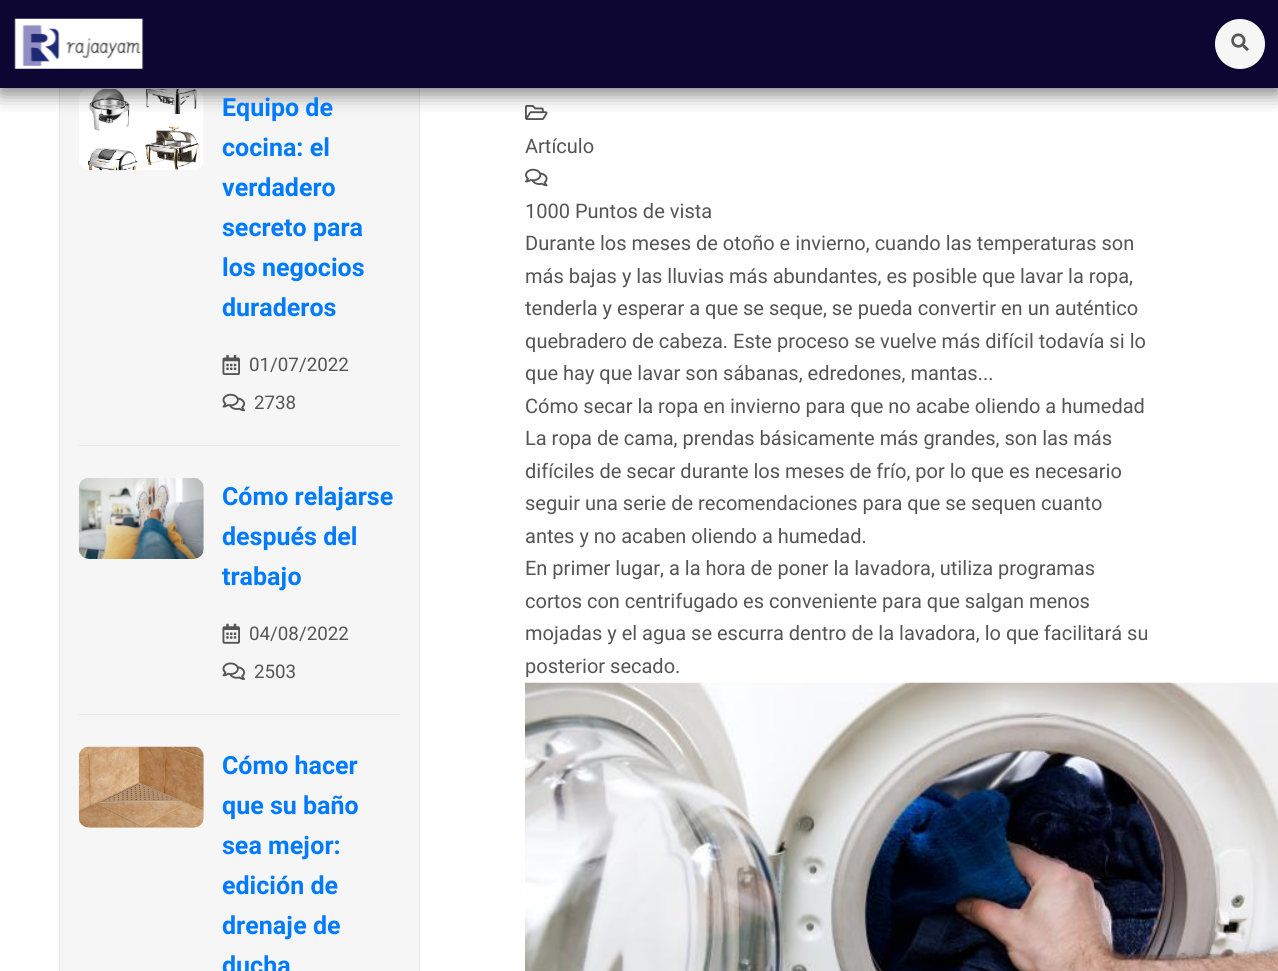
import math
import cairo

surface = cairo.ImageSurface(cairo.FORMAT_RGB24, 1278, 971)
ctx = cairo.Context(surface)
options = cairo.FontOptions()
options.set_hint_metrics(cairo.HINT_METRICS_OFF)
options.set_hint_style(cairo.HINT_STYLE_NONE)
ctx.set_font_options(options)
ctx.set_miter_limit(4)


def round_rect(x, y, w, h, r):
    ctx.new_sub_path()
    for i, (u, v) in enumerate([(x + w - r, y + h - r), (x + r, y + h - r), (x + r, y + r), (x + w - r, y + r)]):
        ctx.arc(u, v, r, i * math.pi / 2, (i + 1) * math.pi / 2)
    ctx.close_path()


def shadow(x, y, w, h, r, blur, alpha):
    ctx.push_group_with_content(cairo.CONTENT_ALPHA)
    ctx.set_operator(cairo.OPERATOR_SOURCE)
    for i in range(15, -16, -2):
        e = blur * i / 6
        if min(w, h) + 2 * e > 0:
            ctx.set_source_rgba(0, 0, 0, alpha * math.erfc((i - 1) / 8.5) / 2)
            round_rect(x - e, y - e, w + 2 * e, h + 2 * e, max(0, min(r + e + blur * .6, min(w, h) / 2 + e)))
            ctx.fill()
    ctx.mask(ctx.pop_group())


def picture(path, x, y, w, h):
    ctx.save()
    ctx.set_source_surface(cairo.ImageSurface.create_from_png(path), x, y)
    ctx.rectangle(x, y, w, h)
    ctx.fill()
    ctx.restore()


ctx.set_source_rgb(1, 1, 1)
ctx.paint()
ctx.set_source_rgb(0.961, 0.961, 0.961)
ctx.rectangle(60, 88, 359, 883)
ctx.fill()
ctx.rectangle(59.5, -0.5, 360, 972)
ctx.set_source_rgb(0.91, 0.91, 0.91)
ctx.set_line_width(1)
ctx.stroke()
picture("img3.png", 79, 89, 125, 82)
picture("img10.png", 525, 105, 23, 15)
ctx.set_source_rgb(0, 0, 0)
shadow(0, 6, 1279, 88, 0, 9.5, 0.5)
ctx.set_source_rgb(0.051, 0.024, 0.2)
ctx.rectangle(0, 0, 1278, 88)
ctx.fill()
picture("img1.png", 14, 18, 130, 51)
ctx.set_source_rgb(0.961, 0.961, 0.961)
ctx.arc(1240, 44, 25, 0, 2 * math.pi)
ctx.fill()
picture("img2.png", 1231, 33, 18, 18)
ctx.set_source_rgb(0.91, 0.91, 0.91)
ctx.rectangle(79, 445, 321, 1)
ctx.fill()
ctx.select_font_face("Heebo", cairo.FONT_SLANT_NORMAL, cairo.FONT_WEIGHT_BOLD)
ctx.set_font_size(25)
ctx.set_source_rgb(0, 0.482, 1)
ctx.move_to(222, 116)
ctx.show_text("Equipo de")
ctx.move_to(222, 156)
ctx.show_text("cocina: el")
ctx.move_to(222, 196)
ctx.show_text("verdadero")
ctx.move_to(222, 236)
ctx.show_text("secreto para")
ctx.move_to(222, 276)
ctx.show_text("los negocios")
ctx.move_to(222, 316)
ctx.show_text("duraderos")
picture("img4.png", 222, 355, 18, 20)
ctx.select_font_face("Heebo")
ctx.set_font_size(18.75)
ctx.set_source_rgb(0.333, 0.333, 0.333)
ctx.move_to(249, 371)
ctx.show_text("01/07/2022")
picture("img5.png", 222, 393, 23, 19)
ctx.move_to(254, 409)
ctx.show_text("2738")
ctx.set_source_rgb(0.91, 0.91, 0.91)
ctx.rectangle(79, 714, 321, 1)
ctx.fill()
picture("img6.png", 78, 478, 126, 81)
ctx.select_font_face("Heebo", cairo.FONT_SLANT_NORMAL, cairo.FONT_WEIGHT_BOLD)
ctx.set_font_size(25)
ctx.set_source_rgb(0, 0.482, 1)
ctx.move_to(222, 505)
ctx.show_text("Cómo relajarse")
ctx.move_to(222, 545)
ctx.show_text("después del")
ctx.move_to(222, 585)
ctx.show_text("trabajo")
picture("img7.png", 222, 623, 18, 21)
ctx.select_font_face("Heebo")
ctx.set_font_size(18.75)
ctx.set_source_rgb(0.333, 0.333, 0.333)
ctx.move_to(249, 640)
ctx.show_text("04/08/2022")
picture("img8.png", 222, 662, 23, 18)
ctx.move_to(254, 678)
ctx.show_text("2503")
picture("img9.png", 78, 746, 126, 82)
ctx.select_font_face("Heebo", cairo.FONT_SLANT_NORMAL, cairo.FONT_WEIGHT_BOLD)
ctx.set_font_size(25)
ctx.set_source_rgb(0, 0.482, 1)
ctx.move_to(222, 774)
ctx.show_text("Cómo hacer")
ctx.move_to(222, 814)
ctx.show_text("que su baño")
ctx.move_to(222, 854)
ctx.show_text("sea mejor:")
ctx.move_to(222, 894)
ctx.show_text("edición de")
ctx.move_to(222, 934)
ctx.show_text("drenaje de")
ctx.move_to(222, 974)
ctx.show_text("ducha")
ctx.select_font_face("Heebo")
ctx.set_font_size(20)
ctx.set_source_rgb(0.333, 0.333, 0.333)
ctx.move_to(525, 153)
ctx.show_text("Artículo")
picture("img11.png", 525, 168, 23, 19)
ctx.move_to(525, 218)
ctx.show_text("1000 Puntos de vista")
ctx.move_to(525, 250)
ctx.show_text("Durante los meses de otoño e invierno, cuando las temperaturas son")
ctx.move_to(525, 283)
ctx.show_text("más bajas y las lluvias más abundantes, es posible que lavar la ropa,")
ctx.move_to(525, 315)
ctx.show_text("tenderla y esperar a que se seque, se pueda convertir en un auténtico")
ctx.move_to(525, 348)
ctx.show_text("quebradero de cabeza. Este proceso se vuelve más difícil todavía si lo")
ctx.move_to(525, 380)
ctx.show_text("que hay que lavar son sábanas, edredones, mantas...")
ctx.move_to(525, 413)
ctx.show_text("Cómo secar la ropa en invierno para que no acabe oliendo a humedad")
ctx.move_to(525, 445)
ctx.show_text("La ropa de cama, prendas básicamente más grandes, son las más")
ctx.move_to(525, 478)
ctx.show_text("difíciles de secar durante los meses de frío, por lo que es necesario")
ctx.move_to(525, 510)
ctx.show_text("seguir una serie de recomendaciones para que se sequen cuanto")
ctx.move_to(525, 543)
ctx.show_text("antes y no acaben oliendo a humedad.")
ctx.move_to(525, 575)
ctx.show_text("En primer lugar, a la hora de poner la lavadora, utiliza programas")
ctx.move_to(525, 608)
ctx.show_text("cortos con centrifugado es conveniente para que salgan menos")
ctx.move_to(525, 640)
ctx.show_text("mojadas y el agua se escurra dentro de la lavadora, lo que facilitará su")
ctx.move_to(525, 673)
ctx.show_text("posterior secado.")
picture("img12.png", 525, 682, 753, 289)
surface.write_to_png("page.png")
